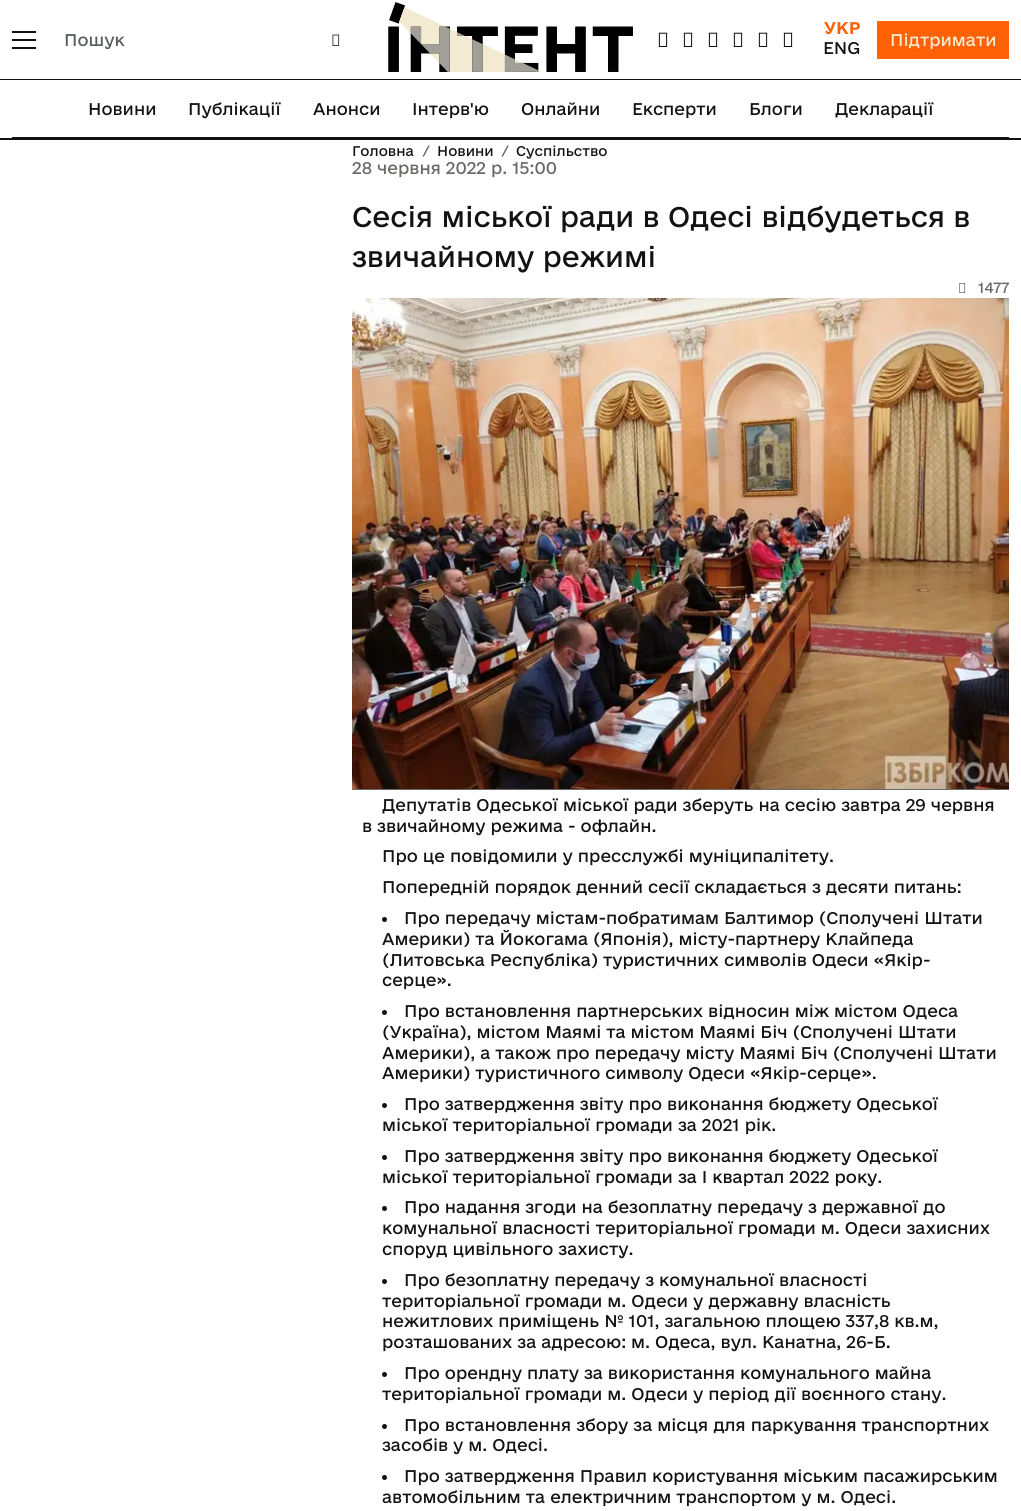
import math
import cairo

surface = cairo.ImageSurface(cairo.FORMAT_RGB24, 1021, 1511)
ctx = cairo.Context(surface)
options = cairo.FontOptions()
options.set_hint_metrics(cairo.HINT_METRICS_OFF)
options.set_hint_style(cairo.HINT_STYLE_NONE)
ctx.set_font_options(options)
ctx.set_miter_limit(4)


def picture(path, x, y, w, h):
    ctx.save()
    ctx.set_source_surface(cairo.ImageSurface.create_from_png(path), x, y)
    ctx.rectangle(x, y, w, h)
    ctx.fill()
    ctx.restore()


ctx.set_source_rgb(1, 1, 1)
ctx.paint()
ctx.set_source_rgb(0.071, 0.071, 0.071)
ctx.rectangle(0, 138, 1021, 2)
ctx.fill()
ctx.rectangle(0, 79, 1021, 1)
ctx.fill()
ctx.rectangle(12, 31, 24, 2)
ctx.fill()
ctx.rectangle(12, 39, 24, 2)
ctx.fill()
ctx.rectangle(12, 47, 24, 2)
ctx.fill()
ctx.save()
ctx.rectangle(64, 30, 244, 19)
ctx.clip()
ctx.select_font_face("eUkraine")
ctx.set_font_size(16)
ctx.set_source_rgb(0.349, 0.361, 0.373)
ctx.move_to(64, 46)
ctx.show_text("Пошук")
ctx.restore()
picture("img1.png", 332, 34, 8, 12)
picture("img2.png", 388, 2, 245, 70)
picture("img3.png", 658, 32, 10, 15)
picture("img3.png", 683, 32, 10, 15)
picture("img3.png", 708, 32, 10, 15)
picture("img3.png", 733, 32, 10, 15)
picture("img3.png", 758, 32, 10, 15)
picture("img3.png", 783, 32, 10, 15)
ctx.select_font_face("eUkraine", cairo.FONT_SLANT_NORMAL, cairo.FONT_WEIGHT_BOLD)
ctx.set_font_size(16)
ctx.set_source_rgb(1, 0.38, 0.031)
ctx.move_to(824, 34)
ctx.show_text("УКР")
ctx.select_font_face("eUkraine")
ctx.set_source_rgb(0.071, 0.071, 0.071)
ctx.move_to(823, 54)
ctx.show_text("ENG")
ctx.set_source_rgb(1, 0.38, 0.031)
ctx.rectangle(877, 21, 132, 38)
ctx.fill()
ctx.set_source_rgb(0.949, 0.922, 0.82)
ctx.move_to(890, 46)
ctx.show_text("Підтримати")
ctx.set_source_rgb(0.071, 0.071, 0.071)
ctx.rectangle(12, 137, 997, 1)
ctx.fill()
ctx.move_to(88, 115)
ctx.show_text("Новини")
ctx.move_to(188, 115)
ctx.show_text("Публікації")
ctx.move_to(313, 115)
ctx.show_text("Анонси")
ctx.move_to(412, 115)
ctx.show_text("Інтерв'ю")
ctx.move_to(521, 115)
ctx.show_text("Онлайни")
ctx.move_to(632, 115)
ctx.show_text("Експерти")
ctx.move_to(749, 115)
ctx.show_text("Блоги")
ctx.move_to(835, 115)
ctx.show_text("Декларації")
ctx.set_font_size(13.25)
ctx.move_to(352, 156)
ctx.show_text("Головна")
ctx.set_source_rgb(0.349, 0.361, 0.373)
ctx.move_to(423, 156)
ctx.show_text("/")
ctx.set_source_rgb(0.071, 0.071, 0.071)
ctx.move_to(437, 156)
ctx.show_text("Новини")
ctx.set_source_rgb(0.349, 0.361, 0.373)
ctx.move_to(502, 156)
ctx.show_text("/")
ctx.set_source_rgb(0.071, 0.071, 0.071)
ctx.move_to(516, 156)
ctx.show_text("Суспільство")
ctx.set_source_rgb(0.408, 0.408, 0.4)
ctx.rectangle(352, 789, 657, 1)
ctx.fill()
ctx.set_font_size(16)
ctx.move_to(352, 174)
ctx.show_text("28 червня 2022 р. 15:00")
ctx.set_font_size(26.9)
ctx.set_source_rgb(0.071, 0.071, 0.071)
ctx.move_to(352, 227)
ctx.show_text("Сесія міської ради в Одесі відбудеться в")
ctx.move_to(352, 267)
ctx.show_text("звичайному режимі")
picture("img4.png", 959, 283, 7, 10)
ctx.set_font_size(14)
ctx.set_source_rgb(0.408, 0.408, 0.4)
ctx.move_to(978, 293)
ctx.show_text("1477")
picture("img5.png", 352, 298, 657, 491)
ctx.set_font_size(16)
ctx.set_source_rgb(0.071, 0.071, 0.071)
ctx.move_to(382, 811)
ctx.show_text("Депутатів Одеської міської ради зберуть на сесію завтра 29 червня")
ctx.move_to(362, 832)
ctx.show_text("в звичайному режима - офлайн.")
ctx.move_to(382, 862)
ctx.show_text("Про це повідомили у пресслужбі муніципалітету.")
ctx.move_to(382, 893)
ctx.show_text("Попередній порядок денний сесії складається з десяти питань:")
ctx.new_path()
ctx.arc(384.5, 919.5, 2.5, 0, 2 * math.pi)
ctx.fill()
ctx.move_to(404, 924)
ctx.show_text("Про передачу містам-побратимам Балтимор (Сполучені Штати")
ctx.move_to(382, 945)
ctx.show_text("Америки) та Йокогама (Японія), місту-партнеру Клайпеда")
ctx.move_to(382, 966)
ctx.show_text("(Литовська Республіка) туристичних символів Одеси «Якір-")
ctx.move_to(382, 986)
ctx.show_text("серце».")
ctx.new_path()
ctx.arc(384.5, 1012.5, 2.5, 0, 2 * math.pi)
ctx.fill()
ctx.move_to(404, 1017)
ctx.show_text("Про встановлення партнерських відносин між містом Одеса")
ctx.move_to(382, 1038)
ctx.show_text("(Україна), містом Маямі та містом Маямі Біч (Сполучені Штати")
ctx.move_to(382, 1059)
ctx.show_text("Америки), а також про передачу місту Маямі Біч (Сполучені Штати")
ctx.move_to(382, 1079)
ctx.show_text("Америки) туристичного символу Одеси «Якір-серце».")
ctx.new_path()
ctx.arc(384.5, 1105.5, 2.5, 0, 2 * math.pi)
ctx.fill()
ctx.move_to(404, 1110)
ctx.show_text("Про затвердження звіту про виконання бюджету Одеської")
ctx.move_to(382, 1131)
ctx.show_text("міської територіальної громади за 2021 рік.")
ctx.new_path()
ctx.arc(384.5, 1157.5, 2.5, 0, 2 * math.pi)
ctx.fill()
ctx.move_to(404, 1162)
ctx.show_text("Про затвердження звіту про виконання бюджету Одеської")
ctx.move_to(382, 1183)
ctx.show_text("міської територіальної громади за І квартал 2022 року.")
ctx.new_path()
ctx.arc(384.5, 1208.5, 2.5, 0, 2 * math.pi)
ctx.fill()
ctx.move_to(404, 1213)
ctx.show_text("Про надання згоди на безоплатну передачу з державної до")
ctx.move_to(382, 1234)
ctx.show_text("комунальної власності територіальної громади м. Одеси захисних")
ctx.move_to(382, 1255)
ctx.show_text("споруд цивільного захисту.")
ctx.new_path()
ctx.arc(384.5, 1281.5, 2.5, 0, 2 * math.pi)
ctx.fill()
ctx.move_to(404, 1286)
ctx.show_text("Про безоплатну передачу з комунальної власності")
ctx.move_to(382, 1307)
ctx.show_text("територіальної громади м. Одеси у державну власність")
ctx.move_to(382, 1327)
ctx.show_text("нежитлових приміщень № 101, загальною площею 337,8 кв.м,")
ctx.move_to(382, 1348)
ctx.show_text("розташованих за адресою: м. Одеса, вул. Канатна, 26-Б.")
ctx.new_path()
ctx.arc(384.5, 1374.5, 2.5, 0, 2 * math.pi)
ctx.fill()
ctx.move_to(404, 1379)
ctx.show_text("Про орендну плату за використання комунального майна")
ctx.move_to(382, 1400)
ctx.show_text("територіальної громади м. Одеси у період дії воєнного стану.")
ctx.new_path()
ctx.arc(384.5, 1426.5, 2.5, 0, 2 * math.pi)
ctx.fill()
ctx.move_to(404, 1431)
ctx.show_text("Про встановлення збору за місця для паркування транспортних")
ctx.move_to(382, 1451)
ctx.show_text("засобів у м. Одесі.")
ctx.new_path()
ctx.arc(384.5, 1477.5, 2.5, 0, 2 * math.pi)
ctx.fill()
ctx.move_to(404, 1482)
ctx.show_text("Про затвердження Правил користування міським пасажирським")
ctx.move_to(382, 1503)
ctx.show_text("автомобільним та електричним транспортом у м. Одесі.")
surface.write_to_png("page.png")
